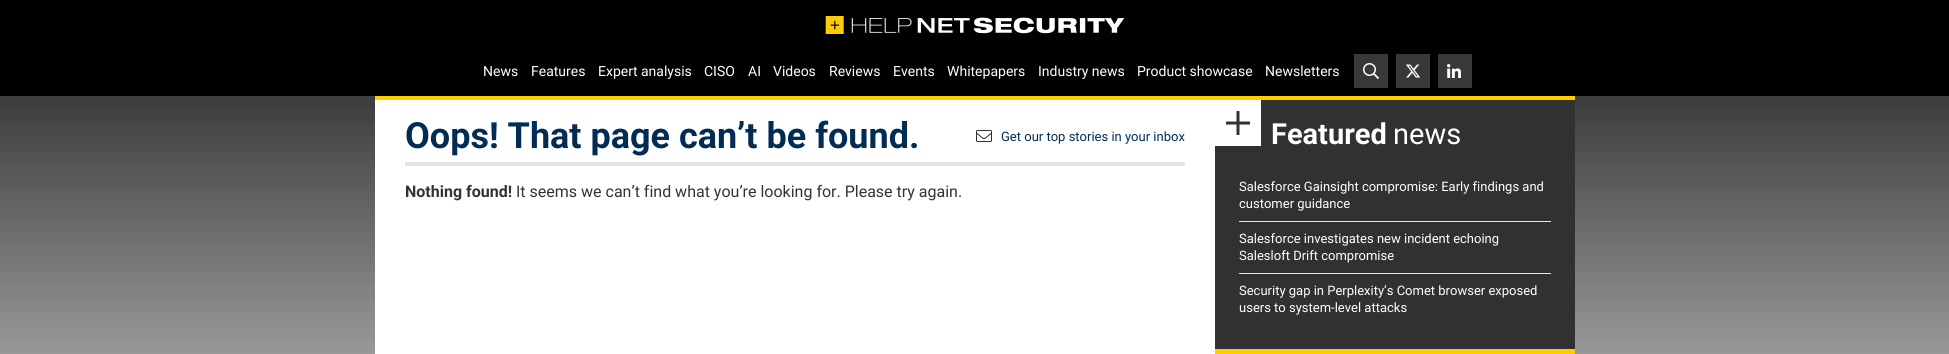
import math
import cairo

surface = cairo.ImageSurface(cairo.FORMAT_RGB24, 1949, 354)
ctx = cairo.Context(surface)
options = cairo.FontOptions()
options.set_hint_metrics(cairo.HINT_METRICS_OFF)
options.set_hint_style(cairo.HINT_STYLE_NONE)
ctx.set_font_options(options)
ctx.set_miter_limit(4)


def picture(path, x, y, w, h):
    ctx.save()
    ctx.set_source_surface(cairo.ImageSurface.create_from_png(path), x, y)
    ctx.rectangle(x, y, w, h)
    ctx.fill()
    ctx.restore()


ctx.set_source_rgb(1, 1, 1)
ctx.paint()
gradient = cairo.LinearGradient(975, 0, 975, 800)
gradient.add_color_stop_rgba(0, 0.102, 0.102, 0.102, 1)
gradient.add_color_stop_rgba(0.8, 1, 1, 1, 1)
ctx.set_source(gradient)
ctx.rectangle(0, 96, 1949, 258)
ctx.fill()
ctx.set_source_rgb(0, 0, 0)
ctx.rectangle(0, 0, 1949, 96)
ctx.fill()
picture("img1.png", 825, 16, 300, 18)
ctx.select_font_face("Roboto")
ctx.set_font_size(14)
ctx.set_source_rgb(1, 1, 1)
ctx.move_to(483, 76)
ctx.show_text("News")
ctx.move_to(531, 76)
ctx.show_text("Features")
ctx.move_to(598, 76)
ctx.show_text("Expert analysis")
ctx.move_to(704, 76)
ctx.show_text("CISO")
ctx.move_to(748, 76)
ctx.show_text("AI")
ctx.move_to(773, 76)
ctx.show_text("Videos")
ctx.move_to(829, 76)
ctx.show_text("Reviews")
ctx.move_to(893, 76)
ctx.show_text("Events")
ctx.move_to(947, 76)
ctx.show_text("Whitepapers")
ctx.move_to(1038, 76)
ctx.show_text("Industry news")
ctx.move_to(1137, 76)
ctx.show_text("Product showcase")
ctx.move_to(1265, 76)
ctx.show_text("Newsletters")
ctx.set_source_rgb(0.224, 0.22, 0.22)
ctx.rectangle(1354, 54, 34, 34)
ctx.fill()
picture("img2.png", 1363, 63, 16, 16)
ctx.rectangle(1396, 54, 34, 34)
ctx.fill()
picture("img3.png", 1406, 64, 15, 14)
ctx.rectangle(1438, 54, 34, 34)
ctx.fill()
picture("img4.png", 1447, 64, 14, 14)
ctx.set_source_rgb(1, 1, 1)
ctx.rectangle(375, 100, 840, 254)
ctx.fill()
ctx.set_source_rgb(0.992, 0.804, 0)
ctx.rectangle(375, 96, 1200, 4)
ctx.fill()
ctx.set_source_rgb(0.898, 0.898, 0.898)
ctx.rectangle(405, 162, 780, 4)
ctx.fill()
ctx.select_font_face("Roboto", cairo.FONT_SLANT_NORMAL, cairo.FONT_WEIGHT_BOLD)
ctx.set_font_size(36)
ctx.set_source_rgb(0.012, 0.173, 0.333)
ctx.move_to(405, 148)
ctx.show_text("Oops! That page can’t be found.")
picture("img5.png", 976, 130, 16, 12)
ctx.select_font_face("Roboto")
ctx.set_font_size(13)
ctx.move_to(1001, 141)
ctx.show_text("Get our top stories in your inbox")
ctx.select_font_face("Roboto", cairo.FONT_SLANT_NORMAL, cairo.FONT_WEIGHT_BOLD)
ctx.set_font_size(16)
ctx.set_source_rgb(0.2, 0.2, 0.2)
ctx.move_to(405, 197)
ctx.show_text("Nothing found!")
ctx.select_font_face("Roboto")
ctx.move_to(516, 197)
ctx.show_text("It seems we can’t find what you’re looking for. Please try again.")
ctx.set_source_rgb(0.192, 0.192, 0.192)
ctx.rectangle(1215, 100, 360, 249)
ctx.fill()
ctx.set_source_rgb(1, 1, 1)
ctx.rectangle(1215, 100, 46, 46)
ctx.fill()
picture("img6.png", 1226, 111, 24, 24)
ctx.select_font_face("Roboto", cairo.FONT_SLANT_NORMAL, cairo.FONT_WEIGHT_BOLD)
ctx.set_font_size(29)
ctx.move_to(1271, 144)
ctx.show_text("Featured")
ctx.select_font_face("Roboto")
ctx.move_to(1393, 144)
ctx.show_text("news")
ctx.set_font_size(13)
ctx.move_to(1239, 191)
ctx.show_text("Salesforce Gainsight compromise: Early findings and")
ctx.move_to(1239, 208)
ctx.show_text("customer guidance")
ctx.set_source_rgb(0.898, 0.898, 0.898)
ctx.rectangle(1239, 221, 312, 1)
ctx.fill()
ctx.set_source_rgb(1, 1, 1)
ctx.move_to(1239, 243)
ctx.show_text("Salesforce investigates new incident echoing")
ctx.move_to(1239, 260)
ctx.show_text("Salesloft Drift compromise")
ctx.set_source_rgb(0.898, 0.898, 0.898)
ctx.rectangle(1239, 273, 312, 1)
ctx.fill()
ctx.set_source_rgb(1, 1, 1)
ctx.move_to(1239, 295)
ctx.show_text("Security gap in Perplexity’s Comet browser exposed")
ctx.move_to(1239, 312)
ctx.show_text("users to system-level attacks")
ctx.set_source_rgb(0.992, 0.804, 0)
ctx.rectangle(1215, 349, 360, 5)
ctx.fill()
surface.write_to_png("page.png")
